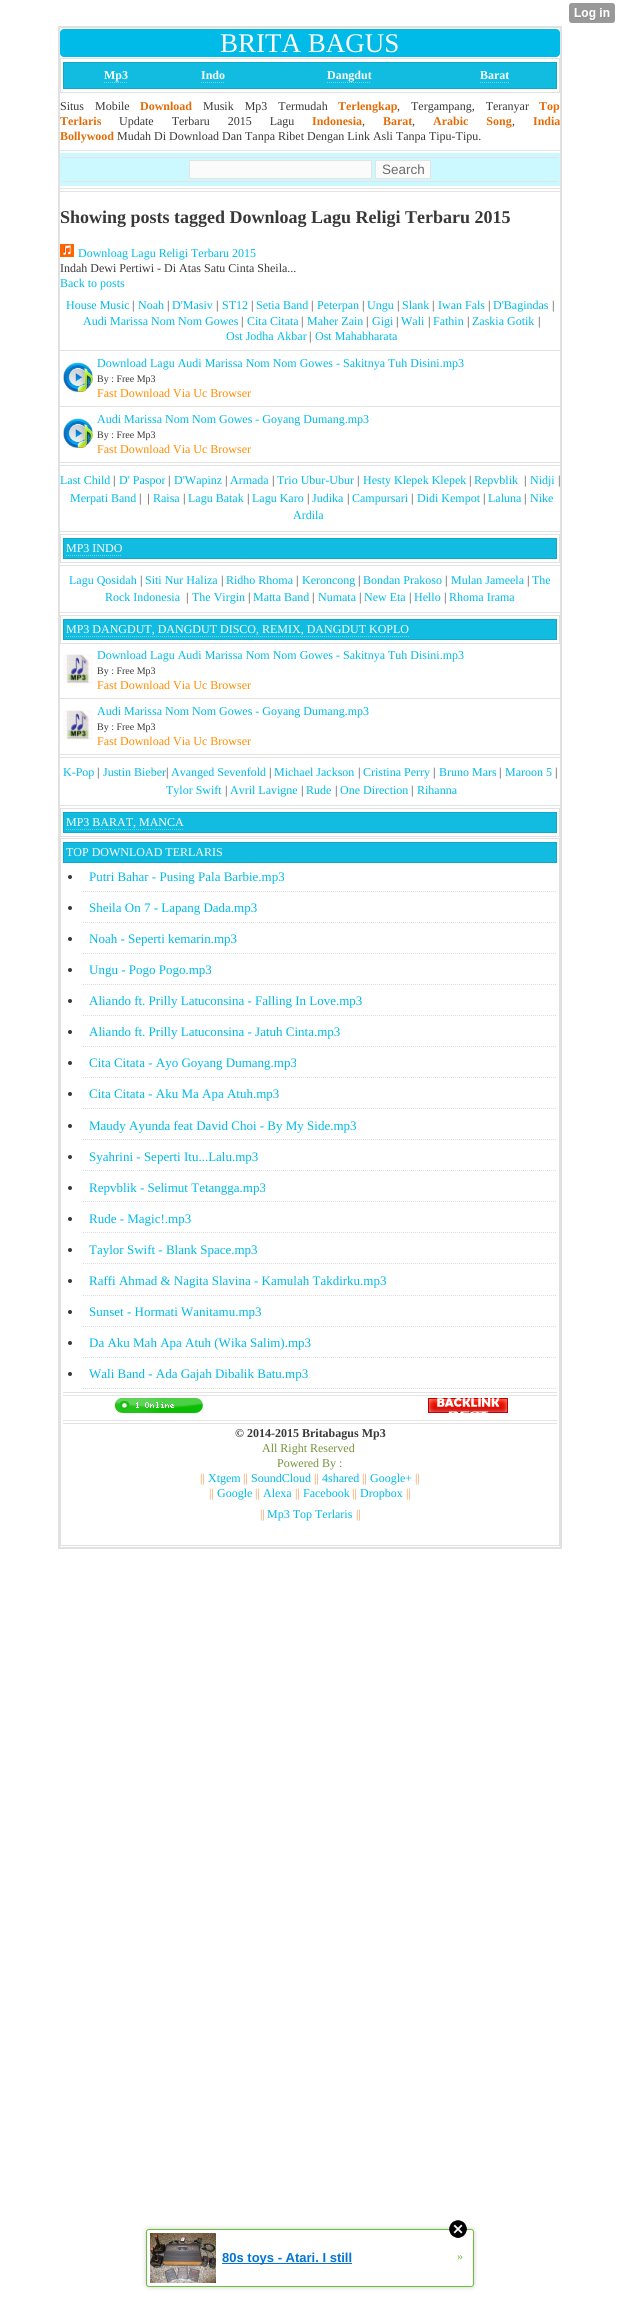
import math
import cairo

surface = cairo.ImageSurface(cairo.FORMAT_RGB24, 620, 2298)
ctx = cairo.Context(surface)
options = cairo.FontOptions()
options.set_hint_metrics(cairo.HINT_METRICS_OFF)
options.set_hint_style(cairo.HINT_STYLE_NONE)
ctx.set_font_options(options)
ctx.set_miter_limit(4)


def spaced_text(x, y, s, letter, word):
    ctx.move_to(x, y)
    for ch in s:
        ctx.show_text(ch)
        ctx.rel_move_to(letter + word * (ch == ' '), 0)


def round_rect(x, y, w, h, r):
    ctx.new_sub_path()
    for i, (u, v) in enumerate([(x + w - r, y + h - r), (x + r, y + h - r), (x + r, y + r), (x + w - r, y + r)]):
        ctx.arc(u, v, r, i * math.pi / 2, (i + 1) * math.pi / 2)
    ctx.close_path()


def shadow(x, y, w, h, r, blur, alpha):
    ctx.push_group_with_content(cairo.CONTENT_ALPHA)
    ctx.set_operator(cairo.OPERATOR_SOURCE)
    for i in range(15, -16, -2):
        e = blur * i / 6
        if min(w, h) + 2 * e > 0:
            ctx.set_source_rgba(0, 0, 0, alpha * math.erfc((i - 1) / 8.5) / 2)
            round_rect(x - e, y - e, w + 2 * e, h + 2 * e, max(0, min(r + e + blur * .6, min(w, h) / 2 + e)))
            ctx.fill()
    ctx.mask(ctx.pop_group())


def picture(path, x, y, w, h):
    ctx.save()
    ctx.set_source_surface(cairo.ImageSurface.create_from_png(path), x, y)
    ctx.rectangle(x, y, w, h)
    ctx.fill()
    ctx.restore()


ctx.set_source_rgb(1, 1, 1)
ctx.paint()
ctx.rectangle(59, 27, 502, 1521)
ctx.set_source_rgb(0.882, 0.882, 0.882)
ctx.stroke()
ctx.set_source_rgb(0, 0.729, 0.91)
round_rect(60, 29, 500, 28, 4)
ctx.fill()
ctx.select_font_face("Liberation Serif")
ctx.set_font_size(27)
ctx.set_source_rgb(1, 1, 1)
ctx.move_to(220, 52)
ctx.show_text("BRITA BAGUS")
ctx.rectangle(60.5, 58.5, 499, 34)
ctx.set_source_rgb(0.882, 0.882, 0.882)
ctx.set_line_width(1)
ctx.stroke()
ctx.set_source_rgb(0.067, 0.737, 0.878)
ctx.rectangle(63.5, 62.5, 493, 26)
ctx.fill_preserve()
ctx.set_source_rgb(0.082, 0.659, 0.78)
ctx.stroke()
ctx.select_font_face("Liberation Serif", cairo.FONT_SLANT_NORMAL, cairo.FONT_WEIGHT_BOLD)
ctx.set_font_size(12)
ctx.set_source_rgb(1, 1, 1)
ctx.move_to(104, 79)
ctx.show_text("Mp3")
ctx.new_path()
ctx.move_to(104, 82.5)
ctx.line_to(128, 82.5)
ctx.set_source_rgb(0.431, 0.843, 0.941)
ctx.set_dash([1, 1])
ctx.stroke()
ctx.set_source_rgb(1, 1, 1)
ctx.move_to(201, 79)
ctx.show_text("Indo")
ctx.new_path()
ctx.move_to(201, 82.5)
ctx.line_to(225, 82.5)
ctx.set_source_rgb(0.431, 0.843, 0.941)
ctx.stroke()
ctx.set_source_rgb(1, 1, 1)
ctx.move_to(327, 79)
ctx.show_text("Dangdut")
ctx.new_path()
ctx.move_to(327, 82.5)
ctx.line_to(371, 82.5)
ctx.set_source_rgb(0.431, 0.843, 0.941)
ctx.stroke()
ctx.set_source_rgb(1, 1, 1)
ctx.move_to(480, 79)
ctx.show_text("Barat")
ctx.new_path()
ctx.move_to(480, 82.5)
ctx.line_to(509, 82.5)
ctx.set_source_rgb(0.431, 0.843, 0.941)
ctx.stroke()
ctx.select_font_face("Liberation Serif")
ctx.set_source_rgb(0.22, 0.22, 0.22)
spaced_text(60, 110, "Situs Mobile", 0, 8)
ctx.select_font_face("Liberation Serif", cairo.FONT_SLANT_NORMAL, cairo.FONT_WEIGHT_BOLD)
ctx.set_source_rgb(0.89, 0.424, 0.035)
ctx.move_to(140, 110)
ctx.show_text("Download")
ctx.select_font_face("Liberation Serif")
ctx.set_source_rgb(0.22, 0.22, 0.22)
spaced_text(203, 110, "Musik Mp3 Termudah", 0, 8)
ctx.select_font_face("Liberation Serif", cairo.FONT_SLANT_NORMAL, cairo.FONT_WEIGHT_BOLD)
ctx.set_source_rgb(0.89, 0.424, 0.035)
ctx.move_to(338, 110)
ctx.show_text("Terlengkap")
ctx.select_font_face("Liberation Serif")
ctx.set_source_rgb(0.22, 0.22, 0.22)
spaced_text(397, 110, ", Tergampang, Teranyar", 0, 8)
ctx.select_font_face("Liberation Serif", cairo.FONT_SLANT_NORMAL, cairo.FONT_WEIGHT_BOLD)
ctx.set_source_rgb(0.89, 0.424, 0.035)
ctx.move_to(539, 110)
ctx.show_text("Top")
ctx.move_to(60, 125)
ctx.show_text("Terlaris")
ctx.select_font_face("Liberation Serif")
ctx.set_source_rgb(0.22, 0.22, 0.22)
spaced_text(119, 125, "Update Terbaru 2015 Lagu", 0, 15)
ctx.select_font_face("Liberation Serif", cairo.FONT_SLANT_NORMAL, cairo.FONT_WEIGHT_BOLD)
ctx.set_source_rgb(0.89, 0.424, 0.035)
ctx.move_to(312, 125)
ctx.show_text("Indonesia")
ctx.select_font_face("Liberation Serif")
ctx.set_source_rgb(0.22, 0.22, 0.22)
ctx.move_to(362, 125)
ctx.show_text(",")
ctx.select_font_face("Liberation Serif", cairo.FONT_SLANT_NORMAL, cairo.FONT_WEIGHT_BOLD)
ctx.set_source_rgb(0.89, 0.424, 0.035)
ctx.move_to(383, 125)
ctx.show_text("Barat")
ctx.select_font_face("Liberation Serif")
ctx.set_source_rgb(0.22, 0.22, 0.22)
ctx.move_to(412, 125)
ctx.show_text(",")
ctx.select_font_face("Liberation Serif", cairo.FONT_SLANT_NORMAL, cairo.FONT_WEIGHT_BOLD)
ctx.set_source_rgb(0.89, 0.424, 0.035)
spaced_text(433, 125, "Arabic Song", 0, 15)
ctx.select_font_face("Liberation Serif")
ctx.set_source_rgb(0.22, 0.22, 0.22)
ctx.move_to(512, 125)
ctx.show_text(",")
ctx.select_font_face("Liberation Serif", cairo.FONT_SLANT_NORMAL, cairo.FONT_WEIGHT_BOLD)
ctx.set_source_rgb(0.89, 0.424, 0.035)
ctx.move_to(533, 125)
ctx.show_text("India")
ctx.move_to(60, 140)
ctx.show_text("Bollywood")
ctx.select_font_face("Liberation Serif")
ctx.set_source_rgb(0.22, 0.22, 0.22)
ctx.move_to(117, 140)
ctx.show_text("Mudah Di Download Dan Tanpa Ribet Dengan Link Asli Tanpa Tipu-Tipu.")
ctx.set_source_rgb(0.89, 0.89, 0.89)
ctx.rectangle(60, 150, 500, 1)
ctx.fill()
ctx.set_source_rgb(0.8, 0.969, 1)
ctx.rectangle(60, 153, 500, 33)
ctx.fill()
ctx.set_source_rgb(0.89, 0.89, 0.89)
ctx.rectangle(62, 157, 496, 1)
ctx.fill()
ctx.set_source_rgb(0.984, 0.984, 0.984)
ctx.rectangle(189.5, 160.5, 182, 18)
ctx.fill_preserve()
ctx.set_source_rgb(0.89, 0.89, 0.89)
ctx.set_dash([])
ctx.stroke()
ctx.set_source_rgb(0.984, 0.984, 0.984)
ctx.rectangle(375.5, 160.5, 55, 18)
ctx.fill_preserve()
ctx.set_source_rgb(0.89, 0.89, 0.89)
ctx.stroke()
ctx.select_font_face("Liberation Sans")
ctx.set_font_size(13.5)
ctx.set_source_rgb(0.427, 0.427, 0.427)
ctx.move_to(382, 174)
ctx.show_text("Search")
ctx.set_source_rgb(0.89, 0.89, 0.89)
ctx.rectangle(62, 181, 496, 1)
ctx.fill()
ctx.rectangle(60, 188, 500, 1)
ctx.fill()
ctx.rectangle(60, 191, 500, 1)
ctx.fill()
ctx.select_font_face("Liberation Serif", cairo.FONT_SLANT_NORMAL, cairo.FONT_WEIGHT_BOLD)
ctx.set_font_size(18)
ctx.set_source_rgb(0.22, 0.22, 0.22)
ctx.move_to(60, 223)
ctx.show_text("Showing posts tagged Downloag Lagu Religi Terbaru 2015")
picture("img1.png", 60, 244, 14, 13)
ctx.select_font_face("Liberation Serif")
ctx.set_font_size(12)
ctx.set_source_rgb(0, 0.729, 0.91)
ctx.move_to(78, 257)
ctx.show_text("Downloag Lagu Religi Terbaru 2015")
ctx.set_source_rgb(0.22, 0.22, 0.22)
ctx.move_to(60, 272)
ctx.show_text("Indah Dewi Pertiwi - Di Atas Satu Cinta Sheila...")
ctx.set_source_rgb(0, 0.729, 0.91)
ctx.move_to(60, 287)
ctx.show_text("Back to posts")
ctx.move_to(66, 309)
ctx.show_text("House Music")
ctx.set_source_rgb(0.22, 0.22, 0.22)
ctx.move_to(132, 309)
ctx.show_text("|")
ctx.set_source_rgb(0, 0.729, 0.91)
ctx.move_to(138, 309)
ctx.show_text("Noah")
ctx.set_source_rgb(0.22, 0.22, 0.22)
ctx.move_to(167, 309)
ctx.show_text("|")
ctx.set_source_rgb(0, 0.729, 0.91)
ctx.move_to(172, 309)
ctx.show_text("D'Masiv")
ctx.set_source_rgb(0.22, 0.22, 0.22)
ctx.move_to(216, 309)
ctx.show_text("|")
ctx.set_source_rgb(0, 0.729, 0.91)
ctx.move_to(222, 309)
ctx.show_text("ST12")
ctx.set_source_rgb(0.22, 0.22, 0.22)
ctx.move_to(251, 309)
ctx.show_text("|")
ctx.set_source_rgb(0, 0.729, 0.91)
ctx.move_to(256, 309)
ctx.show_text("Setia Band")
ctx.set_source_rgb(0.22, 0.22, 0.22)
ctx.move_to(311, 309)
ctx.show_text("|")
ctx.set_source_rgb(0, 0.729, 0.91)
ctx.move_to(317, 309)
ctx.show_text("Peterpan")
ctx.set_source_rgb(0.22, 0.22, 0.22)
ctx.move_to(362, 309)
ctx.show_text("|")
ctx.set_source_rgb(0, 0.729, 0.91)
ctx.move_to(367, 309)
ctx.show_text("Ungu")
ctx.set_source_rgb(0.22, 0.22, 0.22)
ctx.move_to(397, 309)
ctx.show_text("|")
ctx.set_source_rgb(0, 0.729, 0.91)
ctx.move_to(402, 309)
ctx.show_text("Slank")
ctx.set_source_rgb(0.22, 0.22, 0.22)
ctx.move_to(432, 309)
ctx.show_text("|")
ctx.set_source_rgb(0, 0.729, 0.91)
ctx.move_to(438, 309)
ctx.show_text("Iwan Fals")
ctx.set_source_rgb(0.22, 0.22, 0.22)
ctx.move_to(488, 309)
ctx.show_text("|")
ctx.set_source_rgb(0, 0.729, 0.91)
ctx.move_to(493, 309)
ctx.show_text("D'Bagindas")
ctx.set_source_rgb(0.22, 0.22, 0.22)
ctx.move_to(552, 309)
ctx.show_text("|")
ctx.set_source_rgb(0, 0.729, 0.91)
ctx.move_to(83, 325)
ctx.show_text("Audi Marissa Nom Nom Gowes")
ctx.set_source_rgb(0.22, 0.22, 0.22)
ctx.move_to(241, 325)
ctx.show_text("|")
ctx.set_source_rgb(0, 0.729, 0.91)
ctx.move_to(247, 325)
ctx.show_text("Cita Citata")
ctx.set_source_rgb(0.22, 0.22, 0.22)
ctx.move_to(301, 325)
ctx.show_text("|")
ctx.set_source_rgb(0, 0.729, 0.91)
ctx.move_to(307, 325)
ctx.show_text("Maher Zain")
ctx.set_source_rgb(0.22, 0.22, 0.22)
ctx.move_to(366, 325)
ctx.show_text("|")
ctx.set_source_rgb(0, 0.729, 0.91)
ctx.move_to(372, 325)
ctx.show_text("Gigi")
ctx.set_source_rgb(0.22, 0.22, 0.22)
ctx.move_to(396, 325)
ctx.show_text("|")
ctx.set_source_rgb(0, 0.729, 0.91)
ctx.move_to(401, 325)
ctx.show_text("Wali")
ctx.set_source_rgb(0.22, 0.22, 0.22)
ctx.move_to(428, 325)
ctx.show_text("|")
ctx.set_source_rgb(0, 0.729, 0.91)
ctx.move_to(433, 325)
ctx.show_text("Fathin")
ctx.set_source_rgb(0.22, 0.22, 0.22)
ctx.move_to(467, 325)
ctx.show_text("|")
ctx.set_source_rgb(0, 0.729, 0.91)
ctx.move_to(472, 325)
ctx.show_text("Zaskia Gotik")
ctx.set_source_rgb(0.22, 0.22, 0.22)
ctx.move_to(538, 325)
ctx.show_text("|")
ctx.set_source_rgb(0, 0.729, 0.91)
ctx.move_to(226, 340)
ctx.show_text("Ost Jodha Akbar")
ctx.set_source_rgb(0.22, 0.22, 0.22)
ctx.move_to(309, 340)
ctx.show_text("|")
ctx.set_source_rgb(0, 0.729, 0.91)
ctx.move_to(315, 340)
ctx.show_text("Ost Mahabharata")
ctx.set_source_rgb(0.89, 0.89, 0.89)
ctx.rectangle(60, 350, 500, 1)
ctx.fill()
picture("img2.png", 63, 362, 30, 30)
ctx.set_source_rgb(0, 0.729, 0.91)
ctx.move_to(97, 367)
ctx.show_text("Download Lagu Audi Marissa Nom Nom Gowes - Sakitnya Tuh Disini.mp3")
ctx.set_font_size(10)
ctx.set_source_rgb(0.22, 0.22, 0.22)
ctx.move_to(97, 382)
ctx.show_text("By : Free Mp3")
ctx.set_font_size(12)
ctx.set_source_rgb(1, 0.549, 0)
ctx.move_to(97, 397)
ctx.show_text("Fast Download Via Uc Browser")
ctx.set_source_rgb(0.89, 0.89, 0.89)
ctx.rectangle(60, 406, 500, 1)
ctx.fill()
picture("img2.png", 63, 418, 30, 30)
ctx.set_source_rgb(0, 0.729, 0.91)
ctx.move_to(97, 423)
ctx.show_text("Audi Marissa Nom Nom Gowes - Goyang Dumang.mp3")
ctx.set_font_size(10)
ctx.set_source_rgb(0.22, 0.22, 0.22)
ctx.move_to(97, 438)
ctx.show_text("By : Free Mp3")
ctx.set_font_size(12)
ctx.set_source_rgb(1, 0.549, 0)
ctx.move_to(97, 453)
ctx.show_text("Fast Download Via Uc Browser")
ctx.set_source_rgb(0.89, 0.89, 0.89)
ctx.rectangle(60, 462, 500, 1)
ctx.fill()
ctx.rectangle(60, 465, 500, 1)
ctx.fill()
ctx.set_source_rgb(0, 0.729, 0.91)
ctx.move_to(60, 484)
ctx.show_text("Last Child")
ctx.set_source_rgb(0.22, 0.22, 0.22)
ctx.move_to(113, 484)
ctx.show_text("|")
ctx.set_source_rgb(0, 0.729, 0.91)
ctx.move_to(119, 484)
ctx.show_text("D' Paspor")
ctx.set_source_rgb(0.22, 0.22, 0.22)
ctx.move_to(168, 484)
ctx.show_text("|")
ctx.set_source_rgb(0, 0.729, 0.91)
ctx.move_to(174, 484)
ctx.show_text("D'Wapinz")
ctx.set_source_rgb(0.22, 0.22, 0.22)
ctx.move_to(225, 484)
ctx.show_text("|")
ctx.set_source_rgb(0, 0.729, 0.91)
ctx.move_to(230, 484)
ctx.show_text("Armada")
ctx.set_source_rgb(0.22, 0.22, 0.22)
ctx.move_to(272, 484)
ctx.show_text("|")
ctx.set_source_rgb(0, 0.729, 0.91)
ctx.move_to(277, 484)
ctx.show_text("Trio Ubur-Ubur")
ctx.set_source_rgb(0.22, 0.22, 0.22)
ctx.move_to(357, 484)
ctx.show_text("|")
ctx.set_source_rgb(0, 0.729, 0.91)
ctx.move_to(363, 484)
ctx.show_text("Hesty Klepek Klepek")
ctx.set_source_rgb(0.22, 0.22, 0.22)
ctx.move_to(469, 484)
ctx.show_text("|")
ctx.set_source_rgb(0, 0.729, 0.91)
ctx.move_to(474, 484)
ctx.show_text("Repvblik")
ctx.set_source_rgb(0.22, 0.22, 0.22)
ctx.move_to(524, 484)
ctx.show_text("|")
ctx.set_source_rgb(0, 0.729, 0.91)
ctx.move_to(530, 484)
ctx.show_text("Nidji")
ctx.set_source_rgb(0.22, 0.22, 0.22)
ctx.move_to(558, 484)
ctx.show_text("|")
ctx.set_source_rgb(0, 0.729, 0.91)
ctx.move_to(70, 502)
ctx.show_text("Merpati Band")
ctx.set_source_rgb(0.22, 0.22, 0.22)
ctx.move_to(139, 502)
ctx.show_text("|  |")
ctx.set_source_rgb(0, 0.729, 0.91)
ctx.move_to(153, 502)
ctx.show_text("Raisa")
ctx.set_source_rgb(0.22, 0.22, 0.22)
ctx.move_to(183, 502)
ctx.show_text("|")
ctx.set_source_rgb(0, 0.729, 0.91)
ctx.move_to(188, 502)
ctx.show_text("Lagu Batak")
ctx.set_source_rgb(0.22, 0.22, 0.22)
ctx.move_to(247, 502)
ctx.show_text("|")
ctx.set_source_rgb(0, 0.729, 0.91)
ctx.move_to(252, 502)
ctx.show_text("Lagu Karo")
ctx.set_source_rgb(0.22, 0.22, 0.22)
ctx.move_to(307, 502)
ctx.show_text("|")
ctx.set_source_rgb(0, 0.729, 0.91)
ctx.move_to(312, 502)
ctx.show_text("Judika")
ctx.set_source_rgb(0.22, 0.22, 0.22)
ctx.move_to(347, 502)
ctx.show_text("|")
ctx.set_source_rgb(0, 0.729, 0.91)
ctx.move_to(352, 502)
ctx.show_text("Campursari")
ctx.set_source_rgb(0.22, 0.22, 0.22)
ctx.move_to(411, 502)
ctx.show_text("|")
ctx.set_source_rgb(0, 0.729, 0.91)
ctx.move_to(417, 502)
ctx.show_text("Didi Kempot")
ctx.set_source_rgb(0.22, 0.22, 0.22)
ctx.move_to(483, 502)
ctx.show_text("|")
ctx.set_source_rgb(0, 0.729, 0.91)
ctx.move_to(488, 502)
ctx.show_text("Laluna")
ctx.set_source_rgb(0.22, 0.22, 0.22)
ctx.move_to(524, 502)
ctx.show_text("|")
ctx.set_source_rgb(0, 0.729, 0.91)
ctx.move_to(530, 502)
ctx.show_text("Nike")
ctx.move_to(293, 519)
ctx.show_text("Ardila")
ctx.set_source_rgb(0.89, 0.89, 0.89)
ctx.rectangle(60, 531, 500, 1)
ctx.fill()
ctx.rectangle(60.5, 534.5, 499, 28)
ctx.set_source_rgb(0.882, 0.882, 0.882)
ctx.stroke()
ctx.set_source_rgb(0.067, 0.737, 0.878)
ctx.rectangle(63.5, 538.5, 493, 20)
ctx.fill_preserve()
ctx.set_source_rgb(0.082, 0.659, 0.78)
ctx.stroke()
ctx.set_source_rgb(1, 1, 1)
ctx.move_to(66, 552)
ctx.show_text("MP3 INDO")
ctx.new_path()
ctx.move_to(66, 555.5)
ctx.line_to(122, 555.5)
ctx.set_source_rgb(0.431, 0.843, 0.941)
ctx.set_dash([1, 1])
ctx.stroke()
ctx.set_source_rgb(0.89, 0.89, 0.89)
ctx.rectangle(60, 565, 500, 1)
ctx.fill()
ctx.set_source_rgb(0, 0.729, 0.91)
ctx.move_to(69, 584)
ctx.show_text("Lagu Qosidah")
ctx.set_source_rgb(0.22, 0.22, 0.22)
ctx.move_to(140, 584)
ctx.show_text("|")
ctx.set_source_rgb(0, 0.729, 0.91)
ctx.move_to(145, 584)
ctx.show_text("Siti Nur Haliza")
ctx.set_source_rgb(0.22, 0.22, 0.22)
ctx.move_to(221, 584)
ctx.show_text("|")
ctx.set_source_rgb(0, 0.729, 0.91)
ctx.move_to(226, 584)
ctx.show_text("Ridho Rhoma")
ctx.set_source_rgb(0.22, 0.22, 0.22)
ctx.move_to(296, 584)
ctx.show_text("|")
ctx.set_source_rgb(0, 0.729, 0.91)
ctx.move_to(302, 584)
ctx.show_text("Keroncong")
ctx.set_source_rgb(0.22, 0.22, 0.22)
ctx.move_to(358, 584)
ctx.show_text("|")
ctx.set_source_rgb(0, 0.729, 0.91)
ctx.move_to(363, 584)
ctx.show_text("Bondan Prakoso")
ctx.set_source_rgb(0.22, 0.22, 0.22)
ctx.move_to(445, 584)
ctx.show_text("|")
ctx.set_source_rgb(0, 0.729, 0.91)
ctx.move_to(451, 584)
ctx.show_text("Mulan Jameela")
ctx.set_source_rgb(0.22, 0.22, 0.22)
ctx.move_to(527, 584)
ctx.show_text("|")
ctx.set_source_rgb(0, 0.729, 0.91)
ctx.move_to(532, 584)
ctx.show_text("The")
ctx.move_to(105, 601)
ctx.show_text("Rock Indonesia")
ctx.set_source_rgb(0.22, 0.22, 0.22)
ctx.move_to(186, 601)
ctx.show_text("|")
ctx.set_source_rgb(0, 0.729, 0.91)
ctx.move_to(192, 601)
ctx.show_text("The Virgin")
ctx.set_source_rgb(0.22, 0.22, 0.22)
ctx.move_to(248, 601)
ctx.show_text("|")
ctx.set_source_rgb(0, 0.729, 0.91)
ctx.move_to(253, 601)
ctx.show_text("Matta Band")
ctx.set_source_rgb(0.22, 0.22, 0.22)
ctx.move_to(312, 601)
ctx.show_text("|")
ctx.set_source_rgb(0, 0.729, 0.91)
ctx.move_to(318, 601)
ctx.show_text("Numata")
ctx.set_source_rgb(0.22, 0.22, 0.22)
ctx.move_to(359, 601)
ctx.show_text("|")
ctx.set_source_rgb(0, 0.729, 0.91)
ctx.move_to(364, 601)
ctx.show_text("New Eta")
ctx.set_source_rgb(0.22, 0.22, 0.22)
ctx.move_to(409, 601)
ctx.show_text("|")
ctx.set_source_rgb(0, 0.729, 0.91)
ctx.move_to(414, 601)
ctx.show_text("Hello")
ctx.set_source_rgb(0.22, 0.22, 0.22)
ctx.move_to(444, 601)
ctx.show_text("|")
ctx.set_source_rgb(0, 0.729, 0.91)
ctx.move_to(449, 601)
ctx.show_text("Rhoma Irama")
ctx.set_source_rgb(0.89, 0.89, 0.89)
ctx.rectangle(60, 612, 500, 1)
ctx.fill()
ctx.rectangle(60.5, 615.5, 499, 28)
ctx.set_source_rgb(0.882, 0.882, 0.882)
ctx.set_dash([])
ctx.stroke()
ctx.set_source_rgb(0.067, 0.737, 0.878)
ctx.rectangle(63.5, 619.5, 493, 20)
ctx.fill_preserve()
ctx.set_source_rgb(0.082, 0.659, 0.78)
ctx.stroke()
ctx.set_source_rgb(1, 1, 1)
ctx.move_to(66, 633)
ctx.show_text("MP3 DANGDUT, DANGDUT DISCO, REMIX, DANGDUT KOPLO")
ctx.new_path()
ctx.move_to(66, 636.5)
ctx.line_to(409, 636.5)
ctx.set_source_rgb(0.431, 0.843, 0.941)
ctx.set_dash([1, 1])
ctx.stroke()
picture("img3.png", 63, 654, 30, 30)
ctx.set_source_rgb(0, 0.729, 0.91)
ctx.move_to(97, 659)
ctx.show_text("Download Lagu Audi Marissa Nom Nom Gowes - Sakitnya Tuh Disini.mp3")
ctx.set_font_size(10)
ctx.set_source_rgb(0.22, 0.22, 0.22)
ctx.move_to(97, 674)
ctx.show_text("By : Free Mp3")
ctx.set_font_size(12)
ctx.set_source_rgb(1, 0.549, 0)
ctx.move_to(97, 689)
ctx.show_text("Fast Download Via Uc Browser")
ctx.set_source_rgb(0.89, 0.89, 0.89)
ctx.rectangle(60, 698, 500, 1)
ctx.fill()
picture("img3.png", 63, 710, 30, 30)
ctx.set_source_rgb(0, 0.729, 0.91)
ctx.move_to(97, 715)
ctx.show_text("Audi Marissa Nom Nom Gowes - Goyang Dumang.mp3")
ctx.set_font_size(10)
ctx.set_source_rgb(0.22, 0.22, 0.22)
ctx.move_to(97, 730)
ctx.show_text("By : Free Mp3")
ctx.set_font_size(12)
ctx.set_source_rgb(1, 0.549, 0)
ctx.move_to(97, 745)
ctx.show_text("Fast Download Via Uc Browser")
ctx.set_source_rgb(0.89, 0.89, 0.89)
ctx.rectangle(60, 754, 500, 1)
ctx.fill()
ctx.rectangle(60, 757, 500, 1)
ctx.fill()
ctx.set_source_rgb(0, 0.729, 0.91)
ctx.move_to(63, 776)
ctx.show_text("K-Pop")
ctx.set_source_rgb(0.22, 0.22, 0.22)
ctx.move_to(97, 776)
ctx.show_text("|")
ctx.set_source_rgb(0, 0.729, 0.91)
ctx.move_to(103, 776)
ctx.show_text("Justin Bieber")
ctx.set_source_rgb(0.22, 0.22, 0.22)
ctx.move_to(166, 776)
ctx.show_text("|")
ctx.set_source_rgb(0, 0.729, 0.91)
ctx.move_to(171, 776)
ctx.show_text("Avanged Sevenfold")
ctx.set_source_rgb(0.22, 0.22, 0.22)
ctx.move_to(269, 776)
ctx.show_text("|")
ctx.set_source_rgb(0, 0.729, 0.91)
ctx.move_to(274, 776)
ctx.show_text("Michael Jackson")
ctx.set_source_rgb(0.22, 0.22, 0.22)
ctx.move_to(358, 776)
ctx.show_text("|")
ctx.set_source_rgb(0, 0.729, 0.91)
ctx.move_to(363, 776)
ctx.show_text("Cristina Perry")
ctx.set_source_rgb(0.22, 0.22, 0.22)
ctx.move_to(433, 776)
ctx.show_text("|")
ctx.set_source_rgb(0, 0.729, 0.91)
ctx.move_to(439, 776)
ctx.show_text("Bruno Mars")
ctx.set_source_rgb(0.22, 0.22, 0.22)
ctx.move_to(499, 776)
ctx.show_text("|")
ctx.set_source_rgb(0, 0.729, 0.91)
ctx.move_to(505, 776)
ctx.show_text("Maroon 5")
ctx.set_source_rgb(0.22, 0.22, 0.22)
ctx.move_to(555, 776)
ctx.show_text("|")
ctx.set_source_rgb(0, 0.729, 0.91)
ctx.move_to(166, 794)
ctx.show_text("Tylor Swift")
ctx.set_source_rgb(0.22, 0.22, 0.22)
ctx.move_to(225, 794)
ctx.show_text("|")
ctx.set_source_rgb(0, 0.729, 0.91)
ctx.move_to(230, 794)
ctx.show_text("Avril Lavigne")
ctx.set_source_rgb(0.22, 0.22, 0.22)
ctx.move_to(301, 794)
ctx.show_text("|")
ctx.set_source_rgb(0, 0.729, 0.91)
ctx.move_to(306, 794)
ctx.show_text("Rude")
ctx.set_source_rgb(0.22, 0.22, 0.22)
ctx.move_to(335, 794)
ctx.show_text("|")
ctx.set_source_rgb(0, 0.729, 0.91)
ctx.move_to(340, 794)
ctx.show_text("One Direction")
ctx.set_source_rgb(0.22, 0.22, 0.22)
ctx.move_to(411, 794)
ctx.show_text("|")
ctx.set_source_rgb(0, 0.729, 0.91)
ctx.move_to(417, 794)
ctx.show_text("Rihanna")
ctx.set_source_rgb(0.89, 0.89, 0.89)
ctx.rectangle(60, 805, 500, 1)
ctx.fill()
ctx.rectangle(60.5, 808.5, 499, 28)
ctx.set_source_rgb(0.882, 0.882, 0.882)
ctx.set_dash([])
ctx.stroke()
ctx.set_source_rgb(0.067, 0.737, 0.878)
ctx.rectangle(63.5, 812.5, 493, 20)
ctx.fill_preserve()
ctx.set_source_rgb(0.082, 0.659, 0.78)
ctx.stroke()
ctx.set_source_rgb(1, 1, 1)
ctx.move_to(66, 826)
ctx.show_text("MP3 BARAT, MANCA")
ctx.new_path()
ctx.move_to(66, 829.5)
ctx.line_to(184, 829.5)
ctx.set_source_rgb(0.431, 0.843, 0.941)
ctx.set_dash([1, 1])
ctx.stroke()
ctx.rectangle(60.5, 838.5, 499, 707)
ctx.set_source_rgb(0.882, 0.882, 0.882)
ctx.set_dash([])
ctx.stroke()
picture("img4.png", 569, 3, 46, 20)
ctx.set_source_rgb(0.067, 0.737, 0.878)
ctx.rectangle(63.5, 842.5, 493, 20)
ctx.fill_preserve()
ctx.set_source_rgb(0.082, 0.659, 0.78)
ctx.stroke()
ctx.set_source_rgb(1, 1, 1)
ctx.move_to(66, 856)
ctx.show_text("TOP DOWNLOAD TERLARIS")
ctx.new_path()
ctx.move_to(83, 891.5)
ctx.line_to(557, 891.5)
ctx.set_source_rgb(0.867, 0.867, 0.867)
ctx.set_dash([1, 1])
ctx.stroke()
ctx.set_source_rgb(0.22, 0.22, 0.22)
ctx.arc(70, 877, 2, 0, 2 * math.pi)
ctx.fill()
ctx.set_font_size(13)
ctx.set_source_rgb(0, 0.729, 0.91)
ctx.move_to(89, 881)
ctx.show_text("Putri Bahar - Pusing Pala Barbie.mp3")
ctx.new_path()
ctx.move_to(83, 922.5)
ctx.line_to(557, 922.5)
ctx.set_source_rgb(0.867, 0.867, 0.867)
ctx.stroke()
ctx.set_source_rgb(0.22, 0.22, 0.22)
ctx.arc(70, 908, 2, 0, 2 * math.pi)
ctx.fill()
ctx.set_source_rgb(0, 0.729, 0.91)
ctx.move_to(89, 912)
ctx.show_text("Sheila On 7 - Lapang Dada.mp3")
ctx.new_path()
ctx.move_to(83, 953.5)
ctx.line_to(557, 953.5)
ctx.set_source_rgb(0.867, 0.867, 0.867)
ctx.stroke()
ctx.set_source_rgb(0.22, 0.22, 0.22)
ctx.arc(70, 939, 2, 0, 2 * math.pi)
ctx.fill()
ctx.set_source_rgb(0, 0.729, 0.91)
ctx.move_to(89, 943)
ctx.show_text("Noah - Seperti kemarin.mp3")
ctx.new_path()
ctx.move_to(83, 984.5)
ctx.line_to(557, 984.5)
ctx.set_source_rgb(0.867, 0.867, 0.867)
ctx.stroke()
ctx.set_source_rgb(0.22, 0.22, 0.22)
ctx.arc(70, 970, 2, 0, 2 * math.pi)
ctx.fill()
ctx.set_source_rgb(0, 0.729, 0.91)
ctx.move_to(89, 974)
ctx.show_text("Ungu - Pogo Pogo.mp3")
ctx.new_path()
ctx.move_to(83, 1015.5)
ctx.line_to(557, 1015.5)
ctx.set_source_rgb(0.867, 0.867, 0.867)
ctx.stroke()
ctx.set_source_rgb(0.22, 0.22, 0.22)
ctx.arc(70, 1001, 2, 0, 2 * math.pi)
ctx.fill()
ctx.set_source_rgb(0, 0.729, 0.91)
ctx.move_to(89, 1005)
ctx.show_text("Aliando ft. Prilly Latuconsina - Falling In Love.mp3")
ctx.new_path()
ctx.move_to(83, 1046.5)
ctx.line_to(557, 1046.5)
ctx.set_source_rgb(0.867, 0.867, 0.867)
ctx.stroke()
ctx.set_source_rgb(0.22, 0.22, 0.22)
ctx.arc(70, 1032, 2, 0, 2 * math.pi)
ctx.fill()
ctx.set_source_rgb(0, 0.729, 0.91)
ctx.move_to(89, 1036)
ctx.show_text("Aliando ft. Prilly Latuconsina - Jatuh Cinta.mp3")
ctx.new_path()
ctx.move_to(83, 1077.5)
ctx.line_to(557, 1077.5)
ctx.set_source_rgb(0.867, 0.867, 0.867)
ctx.stroke()
ctx.set_source_rgb(0.22, 0.22, 0.22)
ctx.arc(70, 1063, 2, 0, 2 * math.pi)
ctx.fill()
ctx.set_source_rgb(0, 0.729, 0.91)
ctx.move_to(89, 1067)
ctx.show_text("Cita Citata - Ayo Goyang Dumang.mp3")
ctx.new_path()
ctx.move_to(83, 1108.5)
ctx.line_to(557, 1108.5)
ctx.set_source_rgb(0.867, 0.867, 0.867)
ctx.stroke()
ctx.set_source_rgb(0.22, 0.22, 0.22)
ctx.arc(70, 1094, 2, 0, 2 * math.pi)
ctx.fill()
ctx.set_source_rgb(0, 0.729, 0.91)
ctx.move_to(89, 1098)
ctx.show_text("Cita Citata - Aku Ma Apa Atuh.mp3")
ctx.new_path()
ctx.move_to(83, 1139.5)
ctx.line_to(557, 1139.5)
ctx.set_source_rgb(0.867, 0.867, 0.867)
ctx.stroke()
ctx.set_source_rgb(0.22, 0.22, 0.22)
ctx.arc(70, 1126, 2, 0, 2 * math.pi)
ctx.fill()
ctx.set_source_rgb(0, 0.729, 0.91)
ctx.move_to(89, 1130)
ctx.show_text("Maudy Ayunda feat David Choi - By My Side.mp3")
ctx.new_path()
ctx.move_to(83, 1170.5)
ctx.line_to(557, 1170.5)
ctx.set_source_rgb(0.867, 0.867, 0.867)
ctx.stroke()
ctx.set_source_rgb(0.22, 0.22, 0.22)
ctx.arc(70, 1157, 2, 0, 2 * math.pi)
ctx.fill()
ctx.set_source_rgb(0, 0.729, 0.91)
ctx.move_to(89, 1161)
ctx.show_text("Syahrini - Seperti Itu...Lalu.mp3")
ctx.new_path()
ctx.move_to(83, 1201.5)
ctx.line_to(557, 1201.5)
ctx.set_source_rgb(0.867, 0.867, 0.867)
ctx.stroke()
ctx.set_source_rgb(0.22, 0.22, 0.22)
ctx.arc(70, 1188, 2, 0, 2 * math.pi)
ctx.fill()
ctx.set_source_rgb(0, 0.729, 0.91)
ctx.move_to(89, 1192)
ctx.show_text("Repvblik - Selimut Tetangga.mp3")
ctx.new_path()
ctx.move_to(83, 1232.5)
ctx.line_to(557, 1232.5)
ctx.set_source_rgb(0.867, 0.867, 0.867)
ctx.stroke()
ctx.set_source_rgb(0.22, 0.22, 0.22)
ctx.arc(70, 1219, 2, 0, 2 * math.pi)
ctx.fill()
ctx.set_source_rgb(0, 0.729, 0.91)
ctx.move_to(89, 1223)
ctx.show_text("Rude - Magic!.mp3")
ctx.new_path()
ctx.move_to(83, 1263.5)
ctx.line_to(557, 1263.5)
ctx.set_source_rgb(0.867, 0.867, 0.867)
ctx.stroke()
ctx.set_source_rgb(0.22, 0.22, 0.22)
ctx.arc(70, 1250, 2, 0, 2 * math.pi)
ctx.fill()
ctx.set_source_rgb(0, 0.729, 0.91)
ctx.move_to(89, 1254)
ctx.show_text("Taylor Swift - Blank Space.mp3")
ctx.new_path()
ctx.move_to(83, 1295.5)
ctx.line_to(557, 1295.5)
ctx.set_source_rgb(0.867, 0.867, 0.867)
ctx.stroke()
ctx.set_source_rgb(0.22, 0.22, 0.22)
ctx.arc(70, 1281, 2, 0, 2 * math.pi)
ctx.fill()
ctx.set_source_rgb(0, 0.729, 0.91)
ctx.move_to(89, 1285)
ctx.show_text("Raffi Ahmad & Nagita Slavina - Kamulah Takdirku.mp3")
ctx.new_path()
ctx.move_to(83, 1326.5)
ctx.line_to(557, 1326.5)
ctx.set_source_rgb(0.867, 0.867, 0.867)
ctx.stroke()
ctx.set_source_rgb(0.22, 0.22, 0.22)
ctx.arc(70, 1312, 2, 0, 2 * math.pi)
ctx.fill()
ctx.set_source_rgb(0, 0.729, 0.91)
ctx.move_to(89, 1316)
ctx.show_text("Sunset - Hormati Wanitamu.mp3")
ctx.new_path()
ctx.move_to(83, 1357.5)
ctx.line_to(557, 1357.5)
ctx.set_source_rgb(0.867, 0.867, 0.867)
ctx.stroke()
ctx.set_source_rgb(0.22, 0.22, 0.22)
ctx.arc(70, 1343, 2, 0, 2 * math.pi)
ctx.fill()
ctx.set_source_rgb(0, 0.729, 0.91)
ctx.move_to(89, 1347)
ctx.show_text("Da Aku Mah Apa Atuh (Wika Salim).mp3")
ctx.new_path()
ctx.move_to(83, 1388.5)
ctx.line_to(557, 1388.5)
ctx.set_source_rgb(0.867, 0.867, 0.867)
ctx.stroke()
ctx.set_source_rgb(0.22, 0.22, 0.22)
ctx.arc(70, 1374, 2, 0, 2 * math.pi)
ctx.fill()
ctx.set_source_rgb(0, 0.729, 0.91)
ctx.move_to(89, 1378)
ctx.show_text("Wali Band - Ada Gajah Dibalik Batu.mp3")
ctx.set_source_rgb(0.89, 0.89, 0.89)
ctx.rectangle(63, 1392, 494, 1)
ctx.fill()
ctx.rectangle(63, 1395, 494, 1)
ctx.fill()
picture("img5.png", 115, 1398, 88, 15)
picture("img6.png", 428, 1398, 80, 15)
ctx.rectangle(63, 1420, 494, 1)
ctx.fill()
ctx.rectangle(63, 1423, 494, 1)
ctx.fill()
ctx.select_font_face("Liberation Serif", cairo.FONT_SLANT_NORMAL, cairo.FONT_WEIGHT_BOLD)
ctx.set_font_size(12)
ctx.set_source_rgb(0.22, 0.22, 0.22)
ctx.move_to(235, 1437)
ctx.show_text("© 2014-2015 Britabagus Mp3")
ctx.select_font_face("Liberation Serif")
ctx.set_source_rgb(0.463, 0.573, 0.235)
ctx.move_to(262, 1452)
ctx.show_text("All Right Reserved")
ctx.move_to(277, 1467)
ctx.show_text("Powered By :")
ctx.set_source_rgb(0.969, 0.588, 0.275)
ctx.move_to(200, 1482)
ctx.show_text("||")
ctx.set_source_rgb(0, 0.729, 0.91)
ctx.move_to(208, 1482)
ctx.show_text("Xtgem")
ctx.set_source_rgb(0.969, 0.588, 0.275)
ctx.move_to(243, 1482)
ctx.show_text("||")
ctx.set_source_rgb(0, 0.729, 0.91)
ctx.move_to(251, 1482)
ctx.show_text("SoundCloud")
ctx.set_source_rgb(0.969, 0.588, 0.275)
ctx.move_to(314, 1482)
ctx.show_text("||")
ctx.set_source_rgb(0, 0.729, 0.91)
ctx.move_to(322, 1482)
ctx.show_text("4shared")
ctx.set_source_rgb(0.969, 0.588, 0.275)
ctx.move_to(362, 1482)
ctx.show_text("||")
ctx.set_source_rgb(0, 0.729, 0.91)
ctx.move_to(370, 1482)
ctx.show_text("Google+")
ctx.set_source_rgb(0.969, 0.588, 0.275)
ctx.move_to(415, 1482)
ctx.show_text("||")
ctx.move_to(209, 1497)
ctx.show_text("||")
ctx.set_source_rgb(0, 0.729, 0.91)
ctx.move_to(217, 1497)
ctx.show_text("Google")
ctx.set_source_rgb(0.969, 0.588, 0.275)
ctx.move_to(255, 1497)
ctx.show_text("||")
ctx.set_source_rgb(0, 0.729, 0.91)
ctx.move_to(263, 1497)
ctx.show_text("Alexa")
ctx.set_source_rgb(0.969, 0.588, 0.275)
ctx.move_to(295, 1497)
ctx.show_text("||")
ctx.set_source_rgb(0, 0.729, 0.91)
ctx.move_to(303, 1497)
ctx.show_text("Facebook")
ctx.set_source_rgb(0.969, 0.588, 0.275)
ctx.move_to(352, 1497)
ctx.show_text("||")
ctx.set_source_rgb(0, 0.729, 0.91)
ctx.move_to(360, 1497)
ctx.show_text("Dropbox")
ctx.set_source_rgb(0.969, 0.588, 0.275)
ctx.move_to(406, 1497)
ctx.show_text("||")
ctx.move_to(260, 1518)
ctx.show_text("||")
ctx.set_source_rgb(0, 0.729, 0.91)
ctx.move_to(267, 1518)
ctx.show_text("Mp3 Top Terlaris")
ctx.set_source_rgb(0.969, 0.588, 0.275)
ctx.move_to(356, 1518)
ctx.show_text("||")
ctx.set_source_rgb(0, 0, 0)
shadow(146, 2229, 328, 58, 3, 2.5, 0.2)
ctx.set_source_rgb(1, 1, 1)
round_rect(146.5, 2229.5, 327, 57, 2.5)
ctx.fill_preserve()
ctx.set_source_rgb(0.42, 0.757, 0.208)
ctx.set_dash([])
ctx.stroke()
picture("img7.png", 449, 2220, 18, 18)
picture("img8.png", 150, 2233, 66, 50)
ctx.set_source_rgb(0.008, 0.455, 0.831)
ctx.rectangle(222, 2263, 130, 1)
ctx.fill()
ctx.select_font_face("Liberation Sans", cairo.FONT_SLANT_NORMAL, cairo.FONT_WEIGHT_BOLD)
ctx.set_font_size(13)
ctx.move_to(222, 2262)
ctx.show_text("80s toys - Atari. I still")
ctx.select_font_face("Liberation Serif")
ctx.set_font_size(12)
ctx.set_source_rgb(0.42, 0.757, 0.208)
ctx.move_to(457, 2260)
ctx.show_text("»")
surface.write_to_png("page.png")
